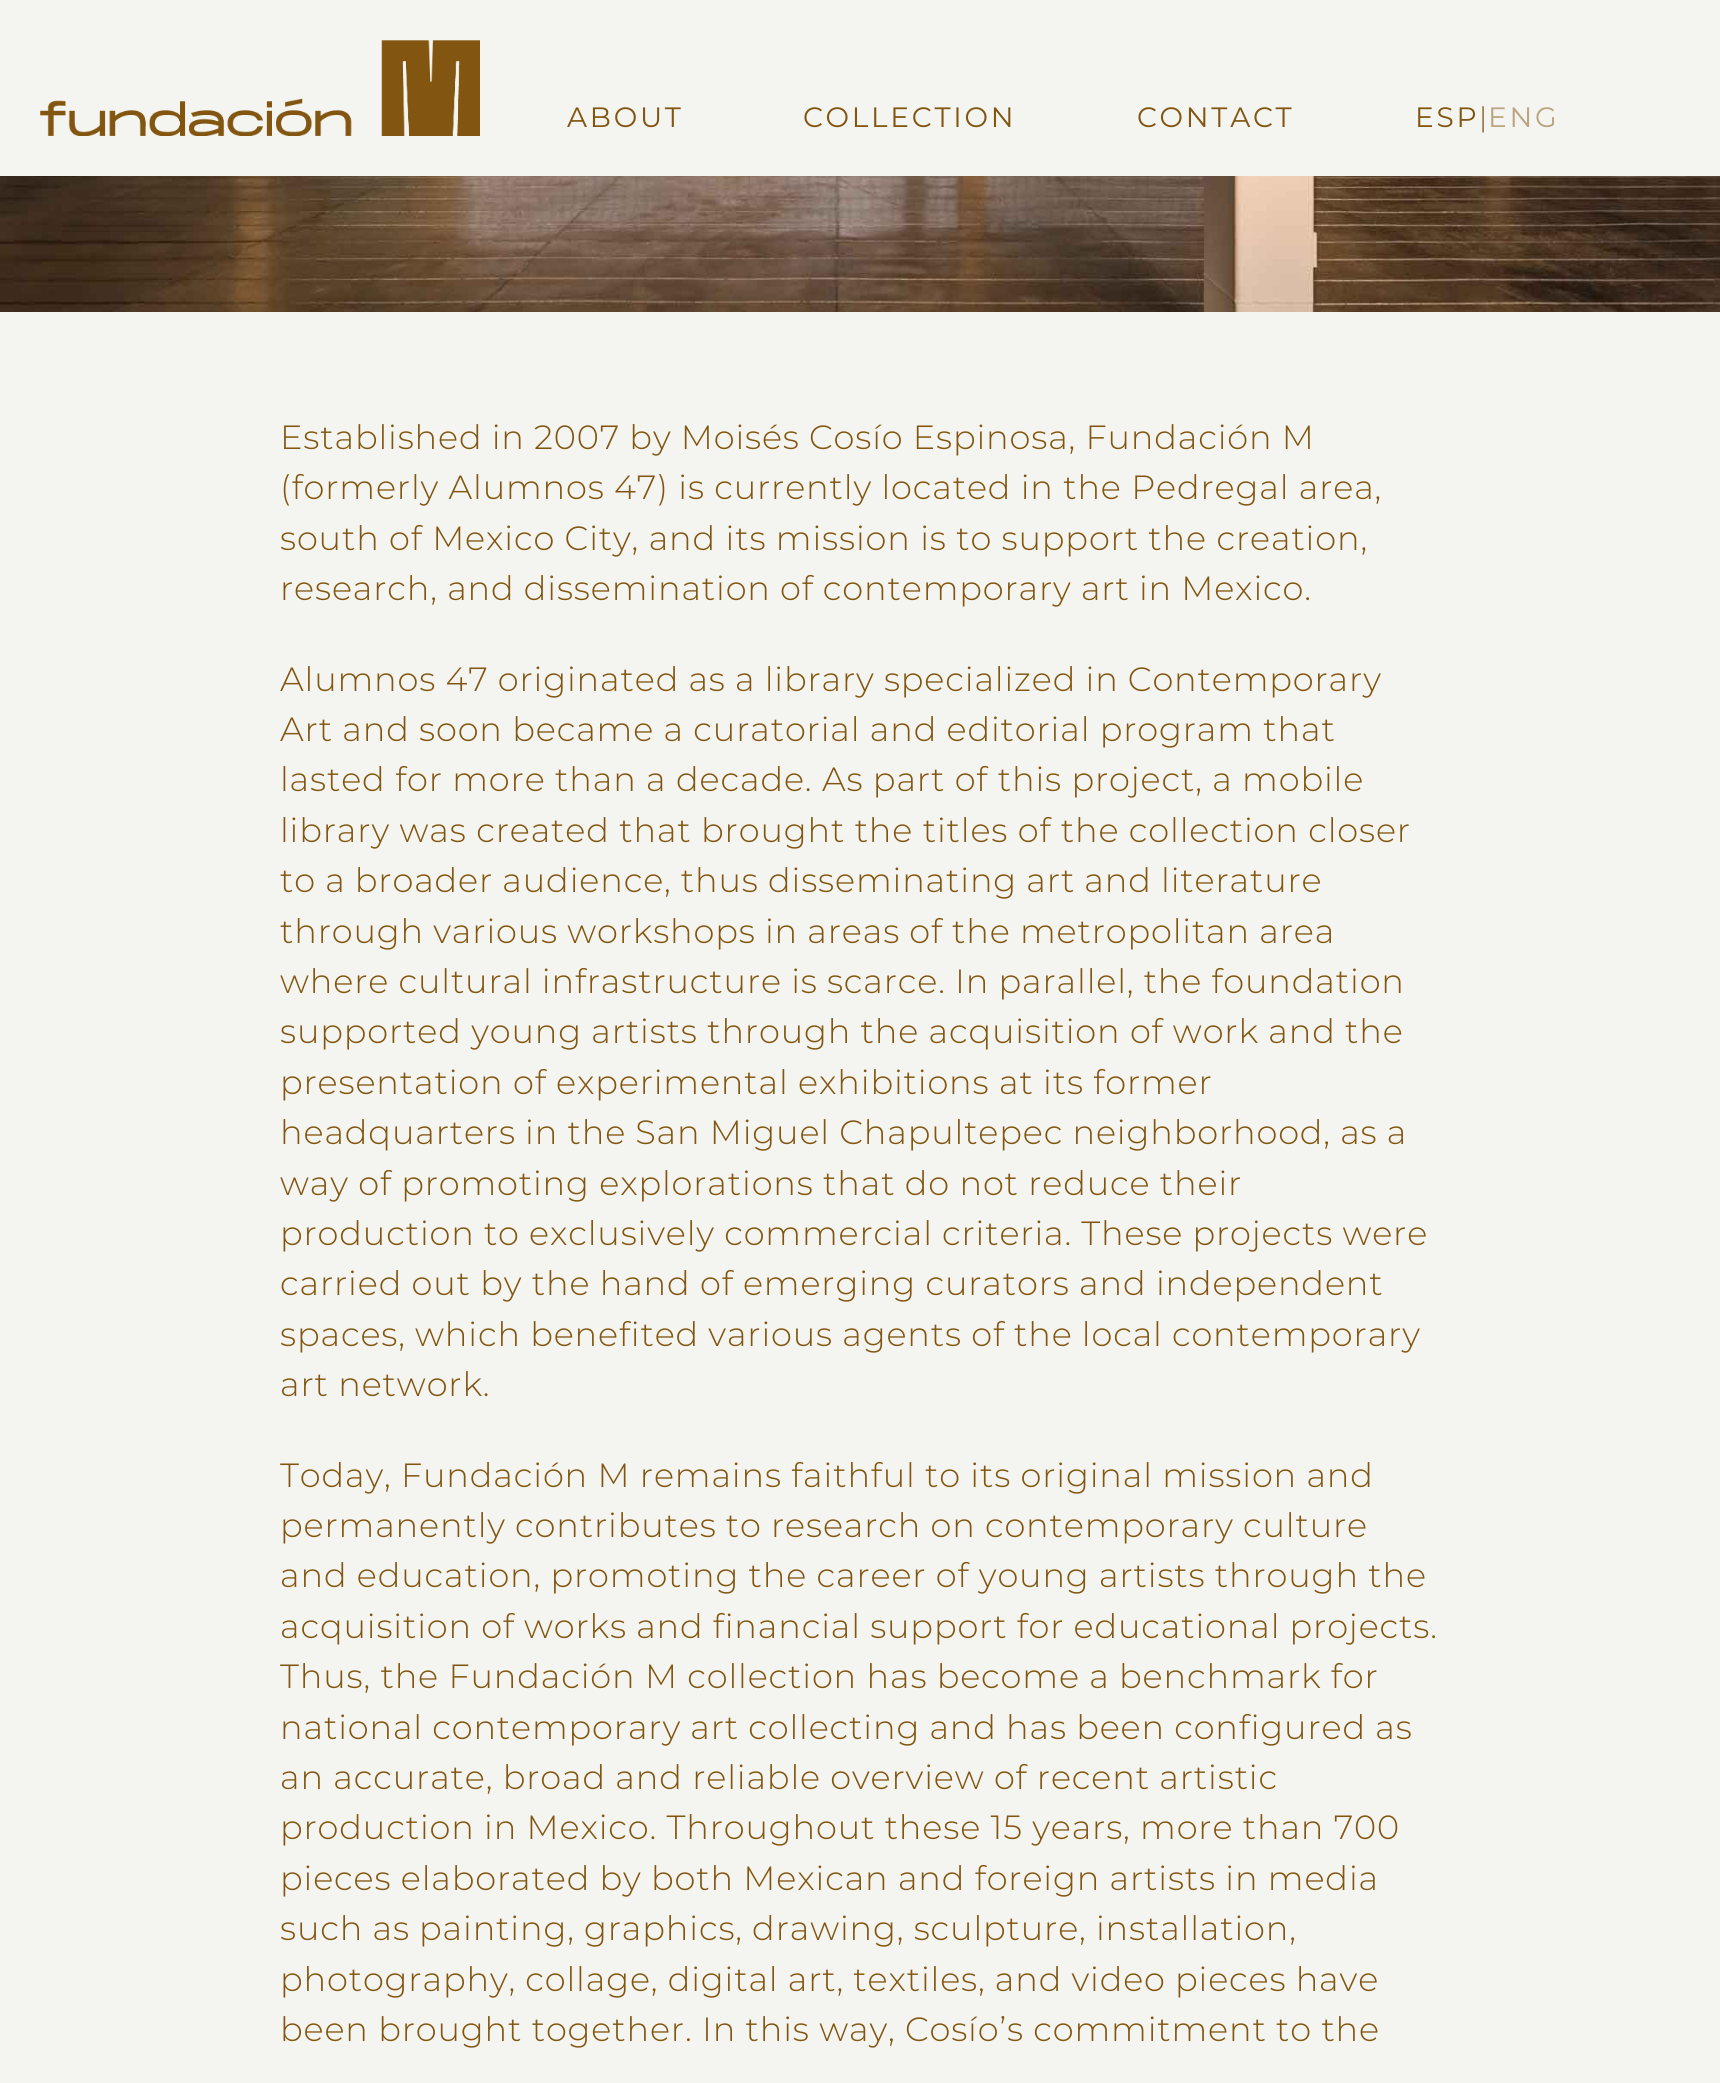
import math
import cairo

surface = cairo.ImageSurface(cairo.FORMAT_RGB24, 1720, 2083)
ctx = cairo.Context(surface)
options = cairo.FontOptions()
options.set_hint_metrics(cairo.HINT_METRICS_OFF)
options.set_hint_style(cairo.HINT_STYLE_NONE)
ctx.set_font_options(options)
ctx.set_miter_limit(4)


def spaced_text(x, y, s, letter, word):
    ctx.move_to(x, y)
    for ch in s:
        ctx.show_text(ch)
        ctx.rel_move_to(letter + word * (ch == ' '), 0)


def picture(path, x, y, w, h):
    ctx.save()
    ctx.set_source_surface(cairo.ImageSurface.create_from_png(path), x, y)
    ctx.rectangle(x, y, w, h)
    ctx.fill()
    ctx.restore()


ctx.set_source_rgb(0.957, 0.957, 0.941)
ctx.paint()
picture("img1.png", 40, 40, 440, 96)
ctx.select_font_face("Montserrat")
ctx.set_font_size(28)
ctx.set_source_rgb(0.51, 0.337, 0.063)
spaced_text(567, 127, "ABOUT", 2.75, 0)
spaced_text(803, 127, "COLLECTION", 2.75, 0)
spaced_text(1137, 127, "CONTACT", 2.75, 0)
spaced_text(1415, 127, "ESP", 2.75, 0)
ctx.select_font_face("Montserrat Light")
spaced_text(1479, 127, "|", 0.85, 0)
ctx.select_font_face("Montserrat")
ctx.set_source_rgb(0.733, 0.647, 0.502)
spaced_text(1488, 127, "ENG", 2.75, 0)
picture("img2.png", 0, 176, 1720, 136)
ctx.select_font_face("Montserrat Light")
ctx.set_font_size(33.6)
ctx.set_source_rgb(0.51, 0.337, 0.063)
spaced_text(280, 449, "Established in 2007 by Moisés Cosío Espinosa, Fundación M", 0.85, -0.25)
spaced_text(280, 499, "(formerly Alumnos 47) is currently located in the Pedregal area,", 0.85, -0.1)
spaced_text(280, 550, "south of Mexico City, and its mission is to support the creation,", 0.85, 0)
spaced_text(280, 600, "research, and dissemination of contemporary art in Mexico.", 0.85, -0.25)
spaced_text(280, 691, "Alumnos 47 originated as a library specialized in Contemporary", 0.85, -0.25)
spaced_text(280, 741, "Art and soon became a curatorial and editorial program that", 0.85, -0.1)
spaced_text(280, 791, "lasted for more than a decade. As part of this project, a mobile", 0.85, 0)
spaced_text(280, 842, "library was created that brought the titles of the collection closer", 0.85, 0)
spaced_text(280, 892, "to a broader audience, thus disseminating art and literature", 0.85, -0.25)
spaced_text(280, 943, "through various workshops in areas of the metropolitan area", 0.85, -0.25)
spaced_text(280, 993, "where cultural infrastructure is scarce. In parallel, the foundation", 0.85, -0.25)
spaced_text(280, 1043, "supported young artists through the acquisition of work and the", 0.85, -0.1)
spaced_text(280, 1094, "presentation of experimental exhibitions at its former", 0.85, 0)
spaced_text(280, 1144, "headquarters in the San Miguel Chapultepec neighborhood, as a", 0.85, -0.25)
spaced_text(280, 1195, "way of promoting explorations that do not reduce their", 0.85, -0.1)
spaced_text(280, 1245, "production to exclusively commercial criteria. These projects were", 0.85, -0.25)
spaced_text(280, 1295, "carried out by the hand of emerging curators and independent", 0.85, -0.1)
spaced_text(280, 1346, "spaces, which benefited various agents of the local contemporary", 0.85, -0.25)
spaced_text(280, 1396, "art network.", 0.85, 0)
spaced_text(280, 1487, "Today, Fundación M remains faithful to its original mission and", 0.85, -0.1)
spaced_text(280, 1537, "permanently contributes to research on contemporary culture", 0.85, -0.25)
spaced_text(280, 1587, "and education, promoting the career of young artists through the", 0.85, -0.1)
spaced_text(280, 1638, "acquisition of works and financial support for educational projects.", 0.85, -0.25)
spaced_text(280, 1688, "Thus, the Fundación M collection has become a benchmark for", 0.85, -0.1)
spaced_text(280, 1739, "national contemporary art collecting and has been configured as", 0.85, -0.25)
spaced_text(280, 1789, "an accurate, broad and reliable overview of recent artistic", 0.85, -0.1)
spaced_text(280, 1839, "production in Mexico. Throughout these 15 years, more than 700", 0.85, -0.1)
spaced_text(280, 1890, "pieces elaborated by both Mexican and foreign artists in media", 0.85, -0.1)
spaced_text(280, 1940, "such as painting, graphics, drawing, sculpture, installation,", 0.85, -0.25)
spaced_text(280, 1991, "photography, collage, digital art, textiles, and video pieces have", 0.85, -0.25)
spaced_text(280, 2041, "been brought together. In this way, Cosío’s commitment to the", 0.85, -0.1)
surface.write_to_png("page.png")
